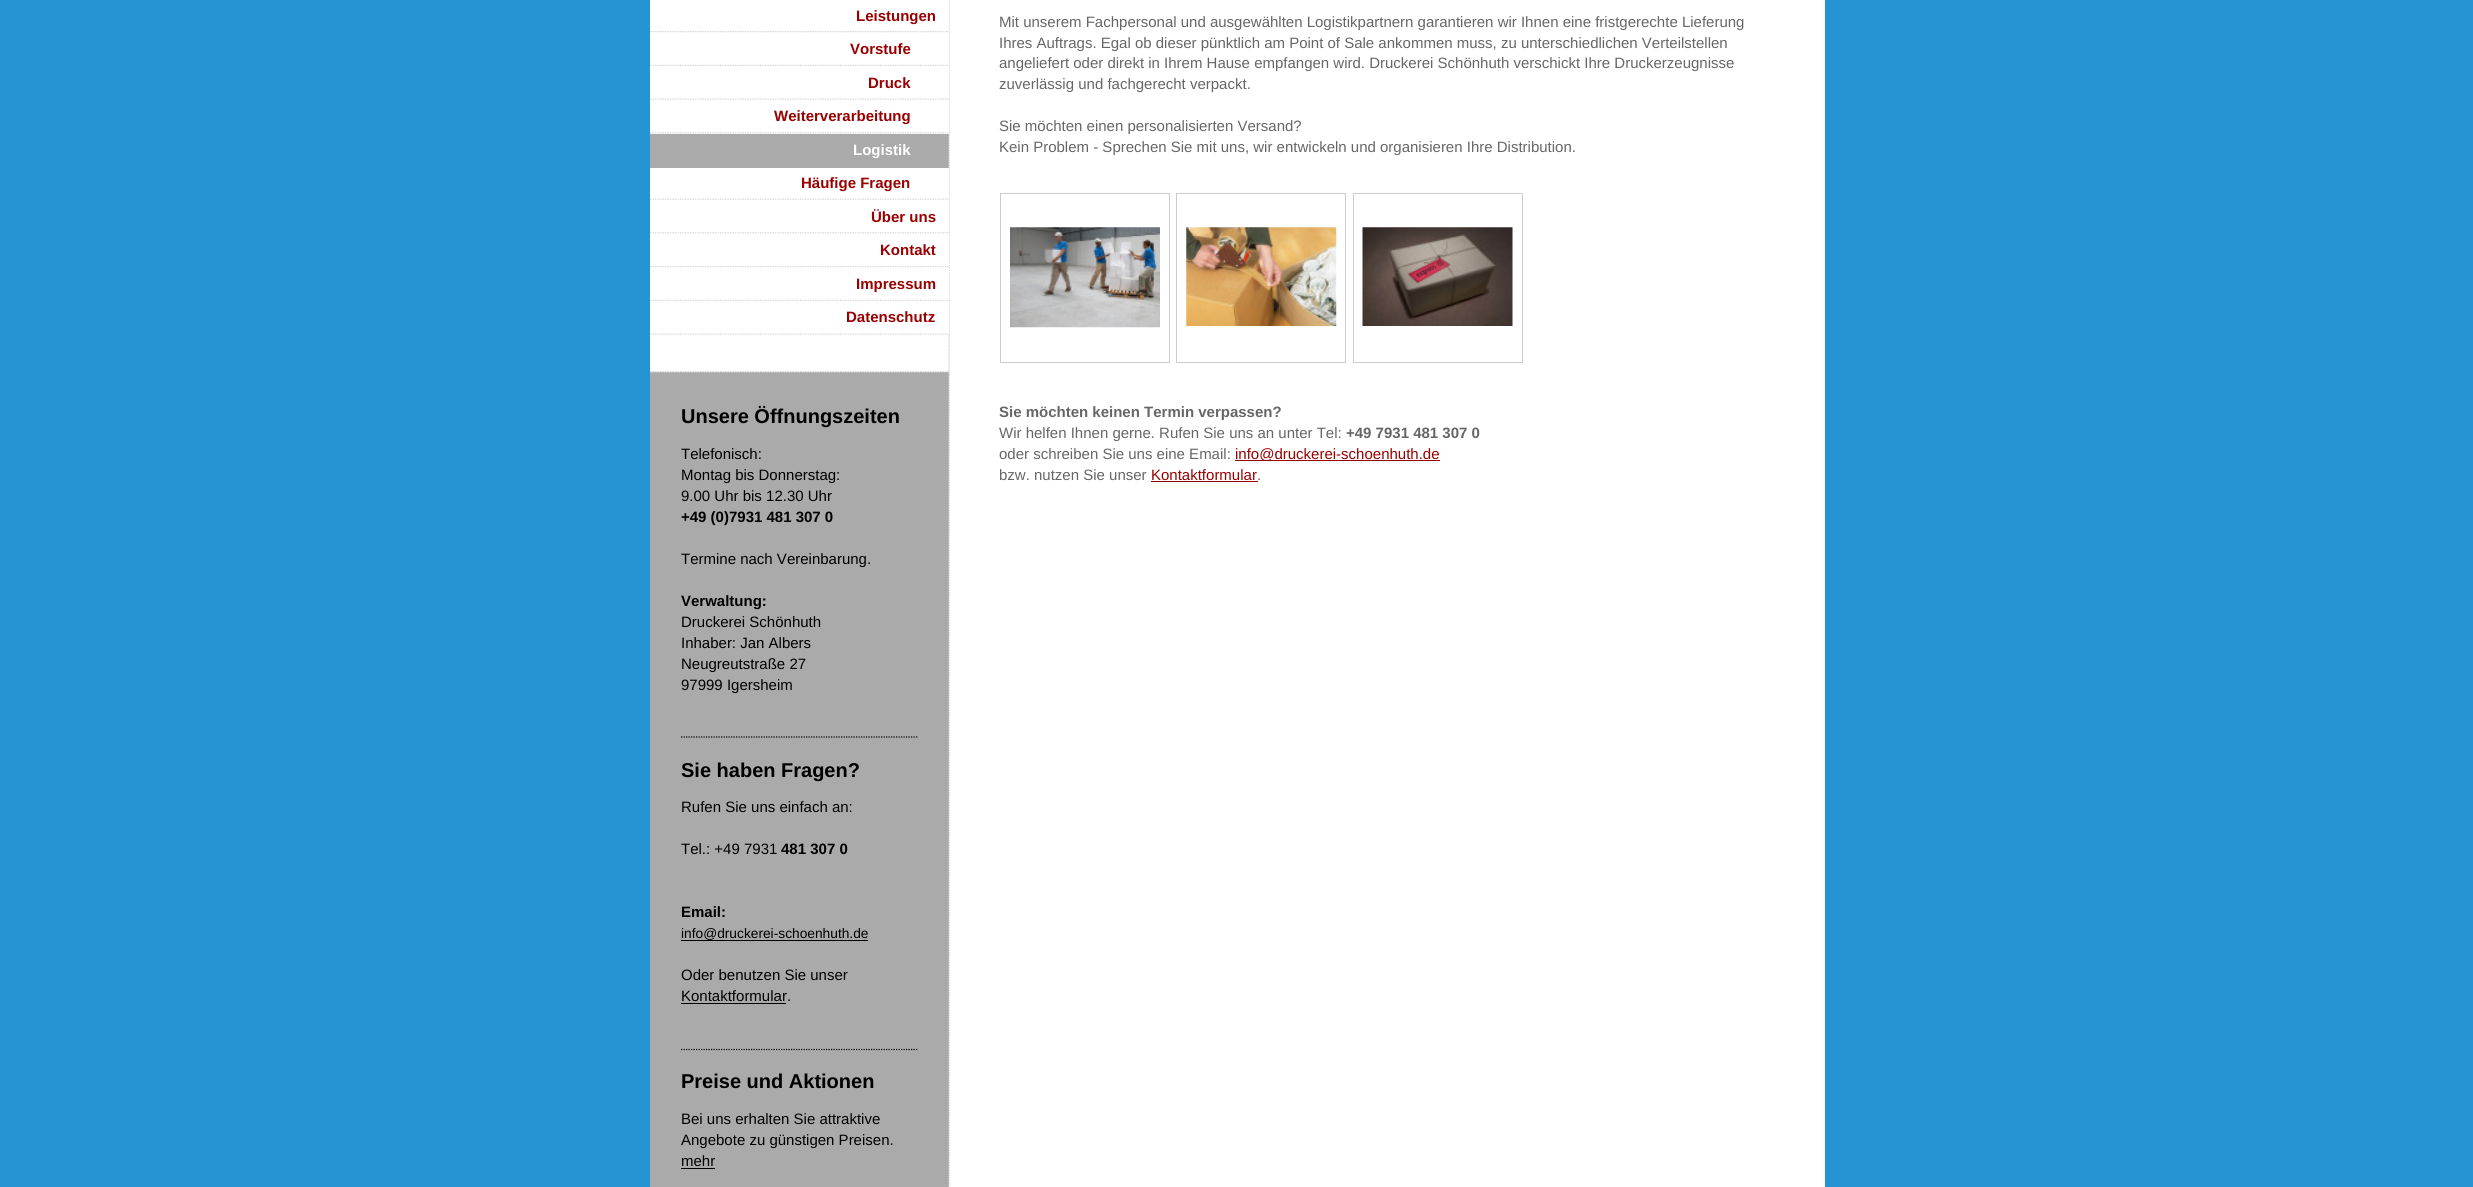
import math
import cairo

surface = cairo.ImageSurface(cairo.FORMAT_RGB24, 2473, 1187)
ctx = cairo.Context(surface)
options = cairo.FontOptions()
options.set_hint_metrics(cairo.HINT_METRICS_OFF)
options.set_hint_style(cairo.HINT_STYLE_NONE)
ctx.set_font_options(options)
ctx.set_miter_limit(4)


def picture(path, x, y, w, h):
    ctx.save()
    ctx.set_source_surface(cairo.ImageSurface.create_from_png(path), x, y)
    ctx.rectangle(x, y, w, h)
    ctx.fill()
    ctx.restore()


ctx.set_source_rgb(0.145, 0.58, 0.827)
ctx.paint()
ctx.set_source_rgb(0.671, 0.667, 0.667)
ctx.rectangle(650, 134, 299, 1053)
ctx.fill()
picture("img1.png", 948, 0, 877, 1187)
picture("img2.png", 650, 335, 299, 38)
ctx.set_source_rgb(1, 1, 1)
ctx.rectangle(650, 0, 299, 134)
ctx.fill()
picture("img3.png", 650, 31, 299, 2)
ctx.select_font_face("Liberation Sans", cairo.FONT_SLANT_NORMAL, cairo.FONT_WEIGHT_BOLD)
ctx.set_font_size(15)
ctx.set_source_rgb(0.6, 0, 0)
ctx.move_to(856, 21)
ctx.show_text("Leistungen")
picture("img4.png", 650, 64, 299, 2)
ctx.move_to(850, 54)
ctx.show_text("Vorstufe")
picture("img5.png", 650, 98, 299, 2)
ctx.move_to(868, 88)
ctx.show_text("Druck")
picture("img6.png", 650, 132, 299, 2)
ctx.move_to(774, 121)
ctx.show_text("Weiterverarbeitung")
ctx.set_source_rgb(1, 1, 1)
ctx.move_to(853, 155)
ctx.show_text("Logistik")
ctx.rectangle(650, 168, 299, 167)
ctx.fill()
picture("img5.png", 650, 198, 299, 2)
ctx.set_source_rgb(0.6, 0, 0)
ctx.move_to(801, 188)
ctx.show_text("Häufige Fragen")
picture("img6.png", 650, 232, 299, 2)
ctx.move_to(871, 222)
ctx.show_text("Über uns")
picture("img3.png", 650, 266, 299, 2)
ctx.move_to(880, 255)
ctx.show_text("Kontakt")
picture("img4.png", 650, 299, 299, 2)
ctx.move_to(856, 289)
ctx.show_text("Impressum")
picture("img5.png", 650, 333, 299, 2)
ctx.move_to(846, 322)
ctx.show_text("Datenschutz")
ctx.set_font_size(20)
ctx.set_source_rgb(0, 0, 0)
ctx.move_to(681, 423)
ctx.show_text("Unsere Öffnungszeiten")
ctx.select_font_face("Liberation Sans")
ctx.set_font_size(15)
ctx.move_to(681, 459)
ctx.show_text("Telefonisch:")
ctx.move_to(681, 480)
ctx.show_text("Montag bis Donnerstag:")
ctx.move_to(681, 501)
ctx.show_text("9.00 Uhr bis 12.30 Uhr")
ctx.select_font_face("Liberation Sans", cairo.FONT_SLANT_NORMAL, cairo.FONT_WEIGHT_BOLD)
ctx.move_to(681, 522)
ctx.show_text("+49 (0)7931 481 307 0")
ctx.select_font_face("Liberation Sans")
ctx.move_to(681, 564)
ctx.show_text("Termine nach Vereinbarung.")
ctx.select_font_face("Liberation Sans", cairo.FONT_SLANT_NORMAL, cairo.FONT_WEIGHT_BOLD)
ctx.move_to(681, 606)
ctx.show_text("Verwaltung:")
ctx.select_font_face("Liberation Sans")
ctx.move_to(681, 627)
ctx.show_text("Druckerei Schönhuth")
ctx.move_to(681, 648)
ctx.show_text("Inhaber: Jan Albers")
ctx.move_to(681, 669)
ctx.show_text("Neugreutstraße 27")
ctx.move_to(681, 690)
ctx.show_text("97999 Igersheim")
ctx.new_path()
ctx.move_to(681, 737)
ctx.line_to(917.5, 737)
ctx.set_line_width(1.2)
ctx.set_dash([1.25, 1.25])
ctx.stroke()
ctx.select_font_face("Liberation Sans", cairo.FONT_SLANT_NORMAL, cairo.FONT_WEIGHT_BOLD)
ctx.set_font_size(20)
ctx.move_to(681, 777)
ctx.show_text("Sie haben Fragen?")
ctx.select_font_face("Liberation Sans")
ctx.set_font_size(15)
ctx.move_to(681, 812)
ctx.show_text("Rufen Sie uns einfach an:")
ctx.move_to(681, 854)
ctx.show_text("Tel.: +49 7931")
ctx.select_font_face("Liberation Sans", cairo.FONT_SLANT_NORMAL, cairo.FONT_WEIGHT_BOLD)
ctx.move_to(781, 854)
ctx.show_text("481 307 0")
ctx.move_to(681, 917)
ctx.show_text("Email:")
ctx.select_font_face("Liberation Sans")
ctx.set_font_size(13.75)
ctx.move_to(681, 938)
ctx.show_text("info@druckerei-schoenhuth.de")
ctx.rectangle(681, 940, 187, 1)
ctx.fill()
ctx.set_font_size(15)
ctx.move_to(681, 980)
ctx.show_text("Oder benutzen Sie unser")
ctx.move_to(681, 1001)
ctx.show_text("Kontaktformular.")
ctx.rectangle(681, 1003, 105, 1)
ctx.fill()
ctx.new_path()
ctx.move_to(681, 1049.5)
ctx.line_to(917.5, 1049.5)
ctx.stroke()
ctx.select_font_face("Liberation Sans", cairo.FONT_SLANT_NORMAL, cairo.FONT_WEIGHT_BOLD)
ctx.set_font_size(20)
ctx.move_to(681, 1088)
ctx.show_text("Preise und Aktionen")
ctx.select_font_face("Liberation Sans")
ctx.set_font_size(15)
ctx.move_to(681, 1124)
ctx.show_text("Bei uns erhalten Sie attraktive")
ctx.move_to(681, 1145)
ctx.show_text("Angebote zu günstigen Preisen.")
ctx.move_to(681, 1166)
ctx.show_text("mehr")
ctx.rectangle(681, 1168, 34, 1)
ctx.fill()
ctx.set_source_rgb(1, 1, 1)
ctx.rectangle(950, 0, 1, 568)
ctx.fill()
ctx.set_source_rgb(0.4, 0.4, 0.4)
ctx.move_to(999, 27)
ctx.show_text("Mit unserem Fachpersonal und ausgewählten Logistikpartnern garantieren wir Ihnen eine fristgerechte Lieferung")
ctx.move_to(999, 48)
ctx.show_text("Ihres Auftrags. Egal ob dieser pünktlich am Point of Sale ankommen muss, zu unterschiedlichen Verteilstellen")
ctx.move_to(999, 68)
ctx.show_text("angeliefert oder direkt in Ihrem Hause empfangen wird. Druckerei Schönhuth verschickt Ihre Druckerzeugnisse")
ctx.move_to(999, 89)
ctx.show_text("zuverlässig und fachgerecht verpackt.")
ctx.move_to(999, 131)
ctx.show_text("Sie möchten einen personalisierten Versand?")
ctx.move_to(999, 152)
ctx.show_text("Kein Problem - Sprechen Sie mit uns, wir entwickeln und organisieren Ihre Distribution.")
ctx.rectangle(1000.5, 193.5, 169, 169)
ctx.set_source_rgb(0.8, 0.8, 0.8)
ctx.set_line_width(1)
ctx.set_dash([])
ctx.stroke()
picture("img7.png", 1010, 227, 150, 101)
ctx.rectangle(1176.5, 193.5, 169, 169)
ctx.stroke()
picture("img8.png", 1186, 227, 151, 99)
ctx.rectangle(1353.5, 193.5, 169, 169)
ctx.stroke()
picture("img9.png", 1362, 227, 151, 99)
ctx.select_font_face("Liberation Sans", cairo.FONT_SLANT_NORMAL, cairo.FONT_WEIGHT_BOLD)
ctx.set_source_rgb(0.4, 0.4, 0.4)
ctx.move_to(999, 417)
ctx.show_text("Sie möchten keinen Termin verpassen?")
ctx.select_font_face("Liberation Sans")
ctx.move_to(999, 438)
ctx.show_text("Wir helfen Ihnen gerne. Rufen Sie uns an unter Tel:")
ctx.select_font_face("Liberation Sans", cairo.FONT_SLANT_NORMAL, cairo.FONT_WEIGHT_BOLD)
ctx.move_to(1346, 438)
ctx.show_text("+49 7931 481 307 0")
ctx.select_font_face("Liberation Sans")
ctx.move_to(999, 459)
ctx.show_text("oder schreiben Sie uns eine Email:")
ctx.set_source_rgb(0.6, 0, 0)
ctx.rectangle(1235, 460, 205, 1)
ctx.fill()
ctx.move_to(1235, 459)
ctx.show_text("info@druckerei-schoenhuth.de")
ctx.set_source_rgb(0.4, 0.4, 0.4)
ctx.move_to(999, 480)
ctx.show_text("bzw. nutzen Sie unser")
ctx.set_source_rgb(0.6, 0, 0)
ctx.move_to(1151, 480)
ctx.show_text("Kontaktformular")
ctx.rectangle(1151, 481, 107, 1)
ctx.fill()
ctx.set_source_rgb(0.4, 0.4, 0.4)
ctx.move_to(1257, 480)
ctx.show_text(".")
surface.write_to_png("page.png")
